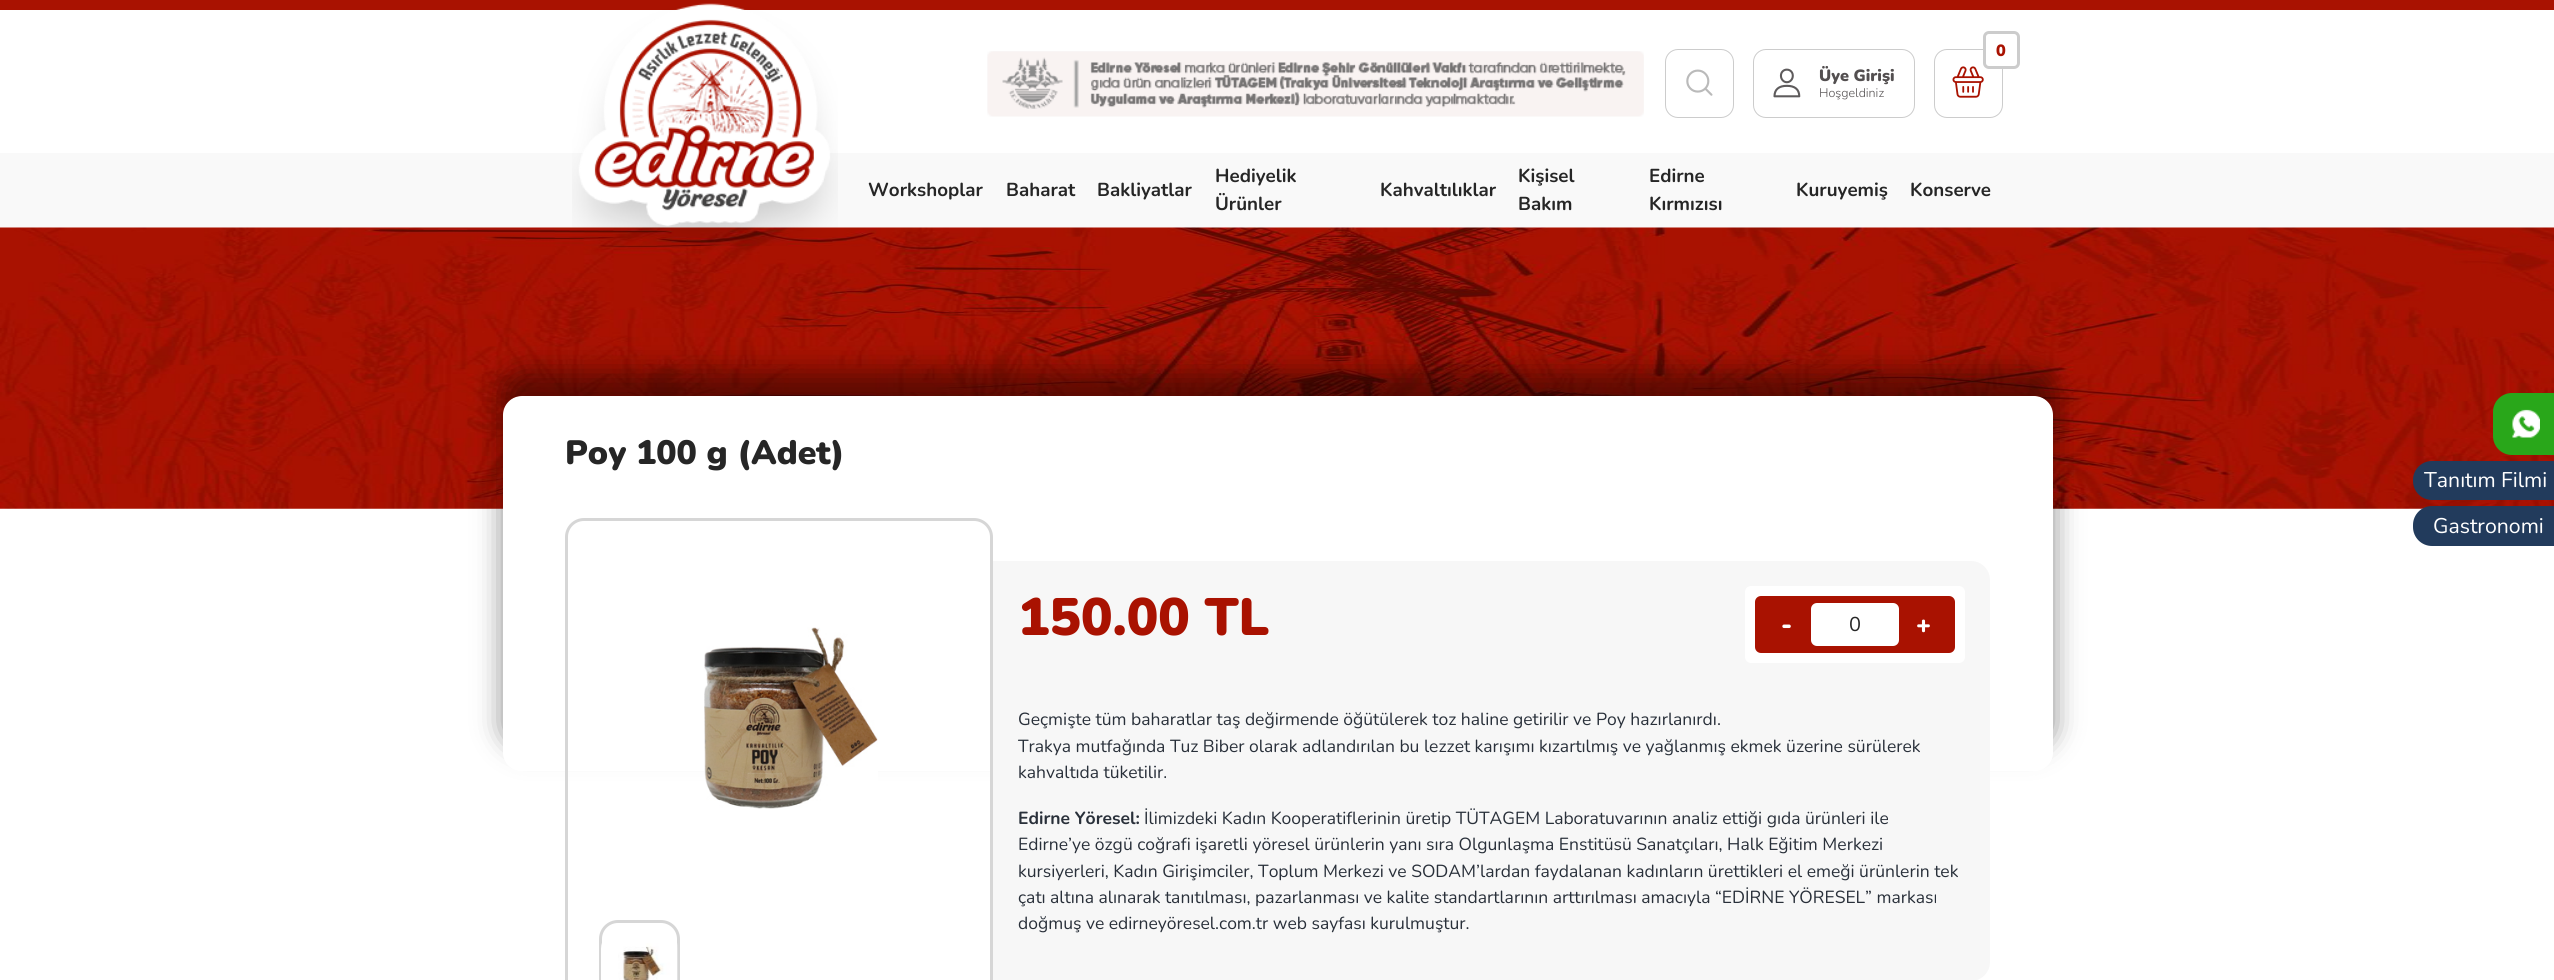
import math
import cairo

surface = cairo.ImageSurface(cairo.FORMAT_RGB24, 2554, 980)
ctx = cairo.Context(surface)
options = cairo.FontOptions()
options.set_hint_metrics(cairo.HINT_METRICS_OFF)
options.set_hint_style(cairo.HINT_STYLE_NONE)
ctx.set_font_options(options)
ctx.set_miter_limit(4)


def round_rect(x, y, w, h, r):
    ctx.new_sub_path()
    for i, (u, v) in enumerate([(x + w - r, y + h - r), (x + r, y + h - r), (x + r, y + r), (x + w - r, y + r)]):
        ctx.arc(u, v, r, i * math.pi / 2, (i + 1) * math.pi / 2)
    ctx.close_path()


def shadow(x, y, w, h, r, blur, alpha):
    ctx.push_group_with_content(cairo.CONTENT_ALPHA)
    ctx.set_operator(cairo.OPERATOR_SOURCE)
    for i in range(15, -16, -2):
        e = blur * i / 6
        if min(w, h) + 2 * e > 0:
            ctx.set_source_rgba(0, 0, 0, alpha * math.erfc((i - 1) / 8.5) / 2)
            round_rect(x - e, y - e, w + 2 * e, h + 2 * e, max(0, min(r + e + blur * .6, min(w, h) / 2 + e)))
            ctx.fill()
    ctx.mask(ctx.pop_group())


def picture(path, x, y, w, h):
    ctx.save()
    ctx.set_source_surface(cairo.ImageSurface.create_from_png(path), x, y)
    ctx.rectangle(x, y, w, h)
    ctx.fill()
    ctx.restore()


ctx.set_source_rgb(1, 1, 1)
ctx.paint()
ctx.set_source_rgb(0.663, 0.071, 0.004)
ctx.rectangle(0, 0, 2554, 10)
ctx.fill()
ctx.set_source_rgb(0.976, 0.976, 0.976)
ctx.rectangle(0, 153, 2554, 75)
ctx.fill()
picture("img6.png", 0, 227, 2554, 282)
picture("img1.png", 572, 3, 266, 243)
picture("img2.png", 987, 51, 657, 66)
round_rect(1665.5, 49.5, 68, 68, 12.5)
ctx.set_source_rgb(0.8, 0.8, 0.8)
ctx.set_line_width(1)
ctx.stroke()
picture("img3.png", 1686, 69, 27, 27)
round_rect(1753.5, 49.5, 161, 68, 12.5)
ctx.stroke()
picture("img4.png", 1773, 68, 28, 30)
ctx.select_font_face("Nunito Black")
ctx.set_font_size(16.25)
ctx.set_source_rgb(0.325, 0.31, 0.314)
ctx.move_to(1819, 81)
ctx.show_text("Üye Girişi")
ctx.select_font_face("Nunito Light")
ctx.set_font_size(12.5)
ctx.move_to(1819, 97)
ctx.show_text("Hoşgeldiniz")
round_rect(1934.5, 49.5, 68, 68, 12.5)
ctx.set_source_rgb(0.8, 0.8, 0.8)
ctx.stroke()
picture("img5.png", 1952, 66, 32, 32)
ctx.set_source_rgb(1, 1, 1)
round_rect(1984.5, 32.5, 34, 35, 4.5)
ctx.fill_preserve()
ctx.set_source_rgb(0.8, 0.8, 0.8)
ctx.set_line_width(3)
ctx.stroke()
ctx.select_font_face("Nunito Black")
ctx.set_font_size(16.25)
ctx.set_source_rgb(0.663, 0.071, 0.004)
ctx.move_to(1996, 56)
ctx.show_text("0")
ctx.select_font_face("Nunito", cairo.FONT_SLANT_NORMAL, cairo.FONT_WEIGHT_BOLD)
ctx.set_font_size(18.75)
ctx.set_source_rgb(0.149, 0.149, 0.149)
ctx.move_to(868, 196)
ctx.show_text("Workshoplar")
ctx.move_to(1006, 196)
ctx.show_text("Baharat")
ctx.move_to(1097, 196)
ctx.show_text("Bakliyatlar")
ctx.move_to(1215, 182)
ctx.show_text("Hediyelik")
ctx.move_to(1215, 210)
ctx.show_text("Ürünler")
ctx.move_to(1380, 196)
ctx.show_text("Kahvaltılıklar")
ctx.move_to(1518, 182)
ctx.show_text("Kişisel")
ctx.move_to(1518, 210)
ctx.show_text("Bakım")
ctx.move_to(1649, 182)
ctx.show_text("Edirne")
ctx.move_to(1649, 210)
ctx.show_text("Kırmızısı")
ctx.move_to(1796, 196)
ctx.show_text("Kuruyemiş")
ctx.move_to(1910, 196)
ctx.show_text("Konserve")
ctx.set_source_rgb(1, 1, 1)
round_rect(503, 396, 1550, 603, 19)
ctx.fill()
ctx.save()
ctx.set_fill_rule(cairo.FILL_RULE_EVEN_ODD)
ctx.new_path()
ctx.move_to(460, 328)
ctx.line_to(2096, 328)
ctx.line_to(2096, 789)
ctx.line_to(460, 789)
ctx.close_path()
ctx.move_to(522, 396)
ctx.line_to(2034, 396)
ctx.curve_to(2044.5, 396, 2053, 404.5, 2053, 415)
ctx.line_to(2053, 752)
ctx.curve_to(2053, 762.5, 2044.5, 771, 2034, 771)
ctx.line_to(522, 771)
ctx.curve_to(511.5, 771, 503, 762.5, 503, 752)
ctx.line_to(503, 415)
ctx.curve_to(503, 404.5, 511.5, 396, 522, 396)
ctx.close_path()
ctx.clip()
ctx.set_source_rgb(0, 0, 0)
shadow(503, 371, 1550, 375, 19, 14, 0.46)
ctx.restore()
ctx.select_font_face("Nunito Black")
ctx.set_font_size(33.75)
ctx.set_source_rgb(0.149, 0.149, 0.149)
ctx.move_to(565, 464)
ctx.show_text("Poy 100 g (Adet)")
round_rect(566.5, 519.5, 425, 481, 17.5)
ctx.set_source_rgb(0.839, 0.839, 0.839)
ctx.stroke()
picture("img7.png", 704, 627, 174, 182)
round_rect(600.5, 921.5, 78, 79, 17.5)
ctx.stroke()
picture("img8.png", 601, 943, 77, 37)
ctx.set_source_rgb(0.965, 0.965, 0.965)
ctx.new_path()
ctx.move_to(993, 561)
ctx.line_to(1971, 561)
ctx.curve_to(1981.5, 561, 1990, 569.5, 1990, 580)
ctx.line_to(1990, 962)
ctx.curve_to(1990, 972.5, 1981.5, 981, 1971, 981)
ctx.line_to(993, 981)
ctx.close_path()
ctx.fill()
ctx.set_font_size(52.5)
ctx.set_source_rgb(0.663, 0.071, 0.004)
ctx.move_to(1018, 635)
ctx.show_text("150.00 TL")
ctx.set_source_rgb(1, 1, 1)
round_rect(1745, 586, 220, 77, 6)
ctx.fill()
ctx.set_source_rgb(0.663, 0.071, 0.004)
round_rect(1755, 596, 200, 57, 6)
ctx.fill()
ctx.set_font_size(25)
ctx.set_source_rgb(1, 1, 1)
ctx.move_to(1781, 633)
ctx.show_text("-")
round_rect(1811, 603, 88, 43, 6)
ctx.fill()
ctx.select_font_face("Nunito")
ctx.set_font_size(20)
ctx.set_source_rgb(0.149, 0.149, 0.149)
ctx.move_to(1849, 631)
ctx.show_text("0")
ctx.select_font_face("Nunito Black")
ctx.set_font_size(25)
ctx.set_source_rgb(1, 1, 1)
ctx.move_to(1916, 633)
ctx.show_text("+")
ctx.select_font_face("Nunito")
ctx.set_font_size(17.5)
ctx.set_source_rgb(0.161, 0.188, 0.227)
ctx.move_to(1018, 725)
ctx.show_text("Geçmişte tüm baharatlar taş değirmende öğütülerek toz haline getirilir ve Poy hazırlanırdı.")
ctx.move_to(1018, 752)
ctx.show_text("Trakya mutfağında Tuz Biber olarak adlandırılan bu lezzet karışımı kızartılmış ve yağlanmış ekmek üzerine sürülerek")
ctx.move_to(1018, 778)
ctx.show_text("kahvaltıda tüketilir.")
ctx.select_font_face("Nunito", cairo.FONT_SLANT_NORMAL, cairo.FONT_WEIGHT_BOLD)
ctx.move_to(1018, 824)
ctx.show_text("Edirne Yöresel:")
ctx.select_font_face("Nunito")
ctx.move_to(1144, 824)
ctx.show_text("İlimizdeki Kadın Kooperatiflerinin üretip TÜTAGEM Laboratuvarının analiz ettiği gıda ürünleri ile")
ctx.move_to(1018, 850)
ctx.show_text("Edirne’ye özgü coğrafi işaretli yöresel ürünlerin yanı sıra Olgunlaşma Enstitüsü Sanatçıları, Halk Eğitim Merkezi")
ctx.move_to(1018, 877)
ctx.show_text("kursiyerleri, Kadın Girişimciler, Toplum Merkezi ve SODAM’lardan faydalanan kadınların ürettikleri el emeği ürünlerin tek")
ctx.move_to(1018, 903)
ctx.show_text("çatı altına alınarak tanıtılması, pazarlanması ve kalite standartlarının arttırılması amacıyla “EDİRNE YÖRESEL” markası")
ctx.move_to(1018, 929)
ctx.show_text("doğmuş ve edirneyöresel.com.tr web sayfası kurulmuştur.")
ctx.set_source_rgb(0.161, 0.655, 0.102)
ctx.new_path()
ctx.move_to(2512, 393)
ctx.line_to(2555, 393)
ctx.line_to(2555, 455)
ctx.line_to(2512, 455)
ctx.curve_to(2501.5, 455, 2493, 446.5, 2493, 436)
ctx.line_to(2493, 412)
ctx.curve_to(2493, 401.5, 2501.5, 393, 2512, 393)
ctx.close_path()
ctx.fill()
picture("img9.png", 2512, 409, 28, 29)
ctx.set_source_rgb(0.133, 0.231, 0.361)
ctx.new_path()
ctx.move_to(2432, 461)
ctx.line_to(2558, 461)
ctx.line_to(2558, 500)
ctx.line_to(2432, 500)
ctx.curve_to(2421.5, 500, 2413, 491.5, 2413, 481)
ctx.line_to(2413, 480)
ctx.curve_to(2413, 469.5, 2421.5, 461, 2432, 461)
ctx.close_path()
ctx.fill()
ctx.set_font_size(21.25)
ctx.set_source_rgb(1, 1, 1)
ctx.move_to(2424, 487)
ctx.show_text("Tanıtım Filmi")
ctx.set_source_rgb(0.133, 0.231, 0.361)
ctx.new_path()
ctx.move_to(2432, 506)
ctx.line_to(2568, 506)
ctx.line_to(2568, 546)
ctx.line_to(2432, 546)
ctx.curve_to(2421.5, 546, 2413, 537.5, 2413, 527)
ctx.line_to(2413, 525)
ctx.curve_to(2413, 514.5, 2421.5, 506, 2432, 506)
ctx.close_path()
ctx.fill()
ctx.set_source_rgb(1, 1, 1)
ctx.move_to(2433, 533)
ctx.show_text("Gastronomi")
surface.write_to_png("page.png")
